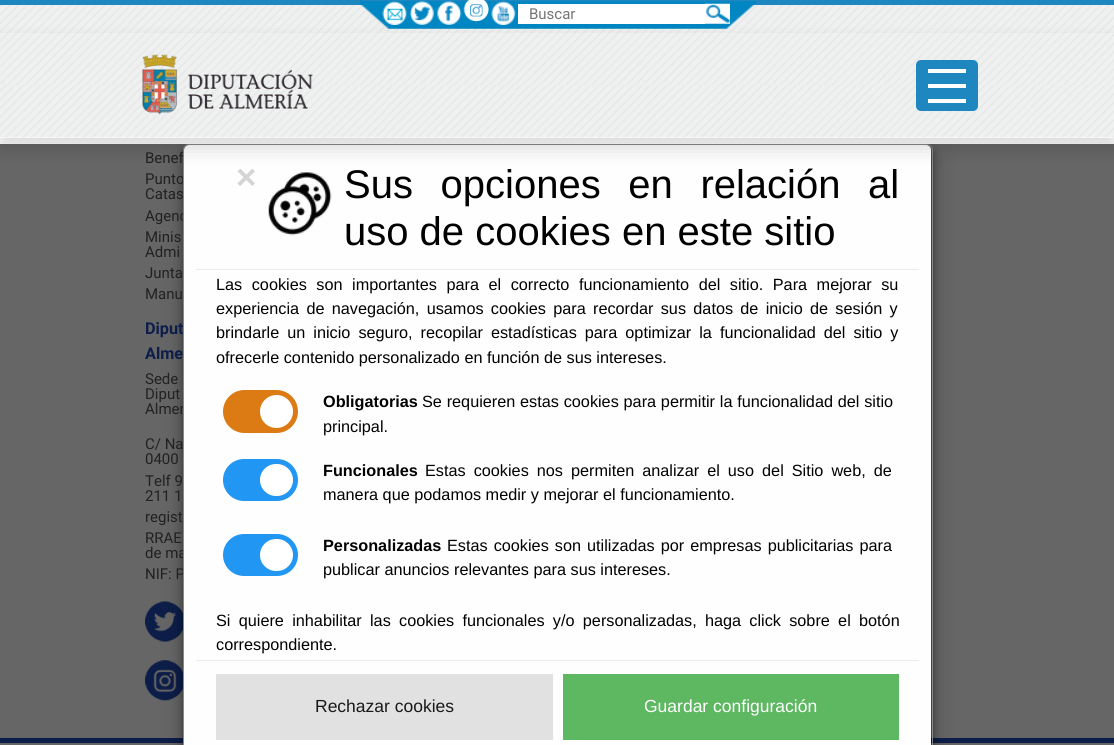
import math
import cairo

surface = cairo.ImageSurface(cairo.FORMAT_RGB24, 1114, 745)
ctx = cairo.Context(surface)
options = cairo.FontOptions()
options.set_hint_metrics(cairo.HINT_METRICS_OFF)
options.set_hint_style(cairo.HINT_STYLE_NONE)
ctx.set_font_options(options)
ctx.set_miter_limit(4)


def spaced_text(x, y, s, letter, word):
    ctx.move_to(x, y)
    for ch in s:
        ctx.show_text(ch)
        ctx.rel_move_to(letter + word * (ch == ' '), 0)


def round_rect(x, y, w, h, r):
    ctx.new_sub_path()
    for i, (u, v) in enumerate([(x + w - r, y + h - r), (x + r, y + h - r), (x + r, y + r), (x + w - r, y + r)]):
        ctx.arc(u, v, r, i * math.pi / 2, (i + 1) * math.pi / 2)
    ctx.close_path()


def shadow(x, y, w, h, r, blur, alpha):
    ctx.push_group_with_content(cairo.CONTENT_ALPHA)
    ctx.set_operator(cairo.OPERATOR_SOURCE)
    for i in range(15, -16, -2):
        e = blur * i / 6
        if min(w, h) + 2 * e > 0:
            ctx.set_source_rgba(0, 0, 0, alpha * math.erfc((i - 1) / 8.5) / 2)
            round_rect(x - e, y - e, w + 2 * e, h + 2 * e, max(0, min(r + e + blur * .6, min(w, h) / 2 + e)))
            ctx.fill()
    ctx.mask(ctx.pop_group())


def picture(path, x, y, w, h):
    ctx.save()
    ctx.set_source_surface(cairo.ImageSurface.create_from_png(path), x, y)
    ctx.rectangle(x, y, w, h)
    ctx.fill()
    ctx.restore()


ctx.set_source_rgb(1, 1, 1)
ctx.paint()
ctx.set_source_rgb(0.4, 0.4, 0.4)
ctx.rectangle(0, 144, 1114, 601)
ctx.fill()
ctx.set_source_rgb(0.047, 0.114, 0.286)
ctx.rectangle(0, 738, 1114, 5)
ctx.fill()
picture("img10.png", 145, 601, 38, 41)
picture("img11.png", 145, 660, 38, 41)
ctx.save()
ctx.rectangle(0, 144, 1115, 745)
ctx.clip()
ctx.set_source_rgb(0, 0, 0)
shadow(183, 151, 750, 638, 6, 12.5, 0.19)
shadow(183, 149, 750, 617, 6, 5, 0.4)
ctx.restore()
picture("img1.png", 0, 5, 1114, 133)
ctx.set_source_rgb(0.118, 0.529, 0.753)
ctx.rectangle(0, 0, 1114, 5)
ctx.fill()
picture("img2.png", 360, 1, 397, 28)
picture("img3.png", 382, 1, 25, 24)
picture("img4.png", 410, 1, 24, 24)
picture("img5.png", 437, 1, 25, 24)
picture("img6.png", 463, 0, 26, 22)
picture("img7.png", 491, 1, 25, 24)
ctx.select_font_face("Roboto")
ctx.set_font_size(15)
ctx.set_source_rgb(0.129, 0.129, 0.129)
ctx.move_to(145, 221)
ctx.show_text("Agenc")
ctx.move_to(145, 414)
ctx.show_text("Almer")
ctx.move_to(145, 558)
ctx.show_text("de ma")
ctx.move_to(145, 579)
ctx.show_text("NIF: P")
ctx.set_source_rgb(0.996, 0.996, 0.996)
round_rect(184, 145, 747, 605, 5)
ctx.fill()
ctx.set_source_rgb(0.129, 0.129, 0.129)
ctx.move_to(145, 163)
ctx.show_text("Benef")
ctx.move_to(145, 184)
ctx.show_text("Punto")
ctx.select_font_face("Roboto", cairo.FONT_SLANT_NORMAL, cairo.FONT_WEIGHT_BOLD)
ctx.set_font_size(16.25)
ctx.set_source_rgb(0.047, 0.114, 0.286)
ctx.move_to(145, 334)
ctx.show_text("Diput")
round_rect(183.5, 144.5, 749, 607, 5.5)
ctx.set_source_rgb(0.533, 0.533, 0.533)
ctx.set_line_width(1)
ctx.stroke()
picture("img12.png", 268, 172, 64, 64)
ctx.save()
ctx.set_fill_rule(cairo.FILL_RULE_EVEN_ODD)
ctx.new_path()
ctx.move_to(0, 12)
ctx.line_to(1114, 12)
ctx.line_to(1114, 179)
ctx.line_to(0, 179)
ctx.close_path()
ctx.move_to(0, 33)
ctx.line_to(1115, 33)
ctx.line_to(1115, 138)
ctx.line_to(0, 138)
ctx.close_path()
ctx.clip()
ctx.set_source_rgb(0, 0, 0)
shadow(0, 43, 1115, 105, 0, 10, 0.15)
ctx.restore()
ctx.set_source_rgb(1, 1, 1)
ctx.rectangle(518, 4, 187, 20)
ctx.fill()
ctx.select_font_face("Roboto")
ctx.set_font_size(15)
ctx.set_source_rgb(0.459, 0.459, 0.459)
ctx.move_to(529, 19)
ctx.show_text("Buscar")
picture("img8.png", 705, 3, 25, 21)
picture("img9.png", 142, 54, 171, 61)
ctx.set_source_rgb(0.118, 0.529, 0.753)
round_rect(916, 60, 62, 51, 5)
ctx.fill()
ctx.set_source_rgb(1, 1, 1)
ctx.rectangle(928, 84, 38, 4)
ctx.fill()
ctx.rectangle(928, 69, 38, 4)
ctx.fill()
ctx.rectangle(928, 99, 38, 4)
ctx.fill()
ctx.set_source_rgb(0.129, 0.129, 0.129)
ctx.move_to(145, 199)
ctx.show_text("Catas")
ctx.move_to(145, 242)
ctx.show_text("Minis")
ctx.move_to(145, 257)
ctx.show_text("Admi")
ctx.move_to(145, 278)
ctx.show_text("Junta")
ctx.move_to(145, 299)
ctx.show_text("Manu")
ctx.select_font_face("Roboto", cairo.FONT_SLANT_NORMAL, cairo.FONT_WEIGHT_BOLD)
ctx.set_font_size(16.25)
ctx.set_source_rgb(0.047, 0.114, 0.286)
ctx.move_to(145, 359)
ctx.show_text("Alme")
ctx.select_font_face("Roboto")
ctx.set_font_size(15)
ctx.set_source_rgb(0.129, 0.129, 0.129)
ctx.move_to(145, 384)
ctx.show_text("Sede")
ctx.move_to(145, 399)
ctx.show_text("Diput")
ctx.move_to(145, 449)
ctx.show_text("C/ Na")
ctx.move_to(145, 464)
ctx.show_text("0400")
ctx.move_to(145, 486)
ctx.show_text("Telf 9")
ctx.move_to(145, 501)
ctx.show_text("211 1")
ctx.move_to(145, 522)
ctx.show_text("regist")
ctx.move_to(145, 543)
ctx.show_text("RRAE")
ctx.set_source_rgb(0.914, 0.925, 0.937)
ctx.rectangle(196, 269, 723, 1)
ctx.fill()
ctx.select_font_face("Liberation Sans", cairo.FONT_SLANT_NORMAL, cairo.FONT_WEIGHT_BOLD)
ctx.set_font_size(35)
ctx.set_source_rgb(0.831, 0.831, 0.831)
ctx.move_to(236, 189)
ctx.show_text("×")
ctx.select_font_face("Liberation Sans")
ctx.set_font_size(40)
ctx.set_source_rgb(0, 0, 0)
spaced_text(344, 198, "Sus opciones en relación al", 0, 16.5)
ctx.move_to(344, 245)
ctx.show_text("uso de cookies en este sitio")
ctx.set_font_size(16.25)
spaced_text(216, 290, "Las cookies son importantes para el correcto funcionamiento del sitio. Para mejorar su", 0, 5)
spaced_text(216, 314, "experiencia de navegación, usamos cookies para recordar sus datos de inicio de sesión y", 0, 2.75)
spaced_text(216, 338, "brindarle un inicio seguro, recopilar estadísticas para optimizar la funcionalidad del sitio y", 0, 3.5)
ctx.move_to(216, 363)
ctx.show_text("ofrecerle contenido personalizado en función de sus intereses.")
ctx.set_source_rgb(0.863, 0.482, 0.078)
round_rect(223, 390, 75, 43, 21.5)
ctx.fill()
ctx.set_source_rgb(1, 1, 1)
ctx.arc(276.5, 411.5, 16.5, 0, 2 * math.pi)
ctx.fill()
ctx.select_font_face("Liberation Sans", cairo.FONT_SLANT_NORMAL, cairo.FONT_WEIGHT_BOLD)
ctx.set_source_rgb(0, 0, 0)
ctx.move_to(323, 407)
ctx.show_text("Obligatorias")
ctx.select_font_face("Liberation Sans")
spaced_text(422, 407, "Se requieren estas cookies para permitir la funcionalidad del sitio", 0, 0.25)
ctx.move_to(323, 432)
ctx.show_text("principal.")
ctx.set_source_rgb(0.129, 0.588, 0.953)
round_rect(223, 459, 75, 42, 21)
ctx.fill()
ctx.set_source_rgb(1, 1, 1)
round_rect(260, 464, 33, 32, 16)
ctx.fill()
ctx.select_font_face("Liberation Sans", cairo.FONT_SLANT_NORMAL, cairo.FONT_WEIGHT_BOLD)
ctx.set_source_rgb(0, 0, 0)
ctx.move_to(323, 476)
ctx.show_text("Funcionales")
ctx.select_font_face("Liberation Sans")
spaced_text(425, 476, "Estas cookies nos permiten analizar el uso del Sitio web, de", 0, 3.5)
ctx.move_to(323, 500)
ctx.show_text("manera que podamos medir y mejorar el funcionamiento.")
ctx.set_source_rgb(0.129, 0.588, 0.953)
round_rect(223, 534, 75, 42, 21)
ctx.fill()
ctx.set_source_rgb(1, 1, 1)
round_rect(260, 539, 33, 32, 16)
ctx.fill()
ctx.select_font_face("Liberation Sans", cairo.FONT_SLANT_NORMAL, cairo.FONT_WEIGHT_BOLD)
ctx.set_source_rgb(0, 0, 0)
ctx.move_to(323, 551)
ctx.show_text("Personalizadas")
ctx.select_font_face("Liberation Sans")
spaced_text(447, 551, "Estas cookies son utilizadas por empresas publicitarias para", 0, 1.5)
ctx.move_to(323, 575)
ctx.show_text("publicar anuncios relevantes para sus intereses.")
spaced_text(216, 626, "Si quiere inhabilitar las cookies funcionales y/o personalizadas, haga click sobre el botón", 0, 3.75)
ctx.move_to(216, 650)
ctx.show_text("correspondiente.")
ctx.set_source_rgb(0.914, 0.925, 0.937)
ctx.rectangle(196, 660, 723, 1)
ctx.fill()
ctx.set_source_rgb(0.882, 0.882, 0.882)
ctx.rectangle(216, 674, 337, 66)
ctx.fill()
ctx.set_font_size(17.5)
ctx.set_source_rgb(0.098, 0.098, 0.098)
ctx.move_to(315, 712)
ctx.show_text("Rechazar cookies")
ctx.set_source_rgb(0.369, 0.718, 0.38)
ctx.rectangle(563, 674, 336, 66)
ctx.fill()
ctx.set_source_rgb(1, 1, 1)
ctx.move_to(644, 712)
ctx.show_text("Guardar configuración")
surface.write_to_png("page.png")
